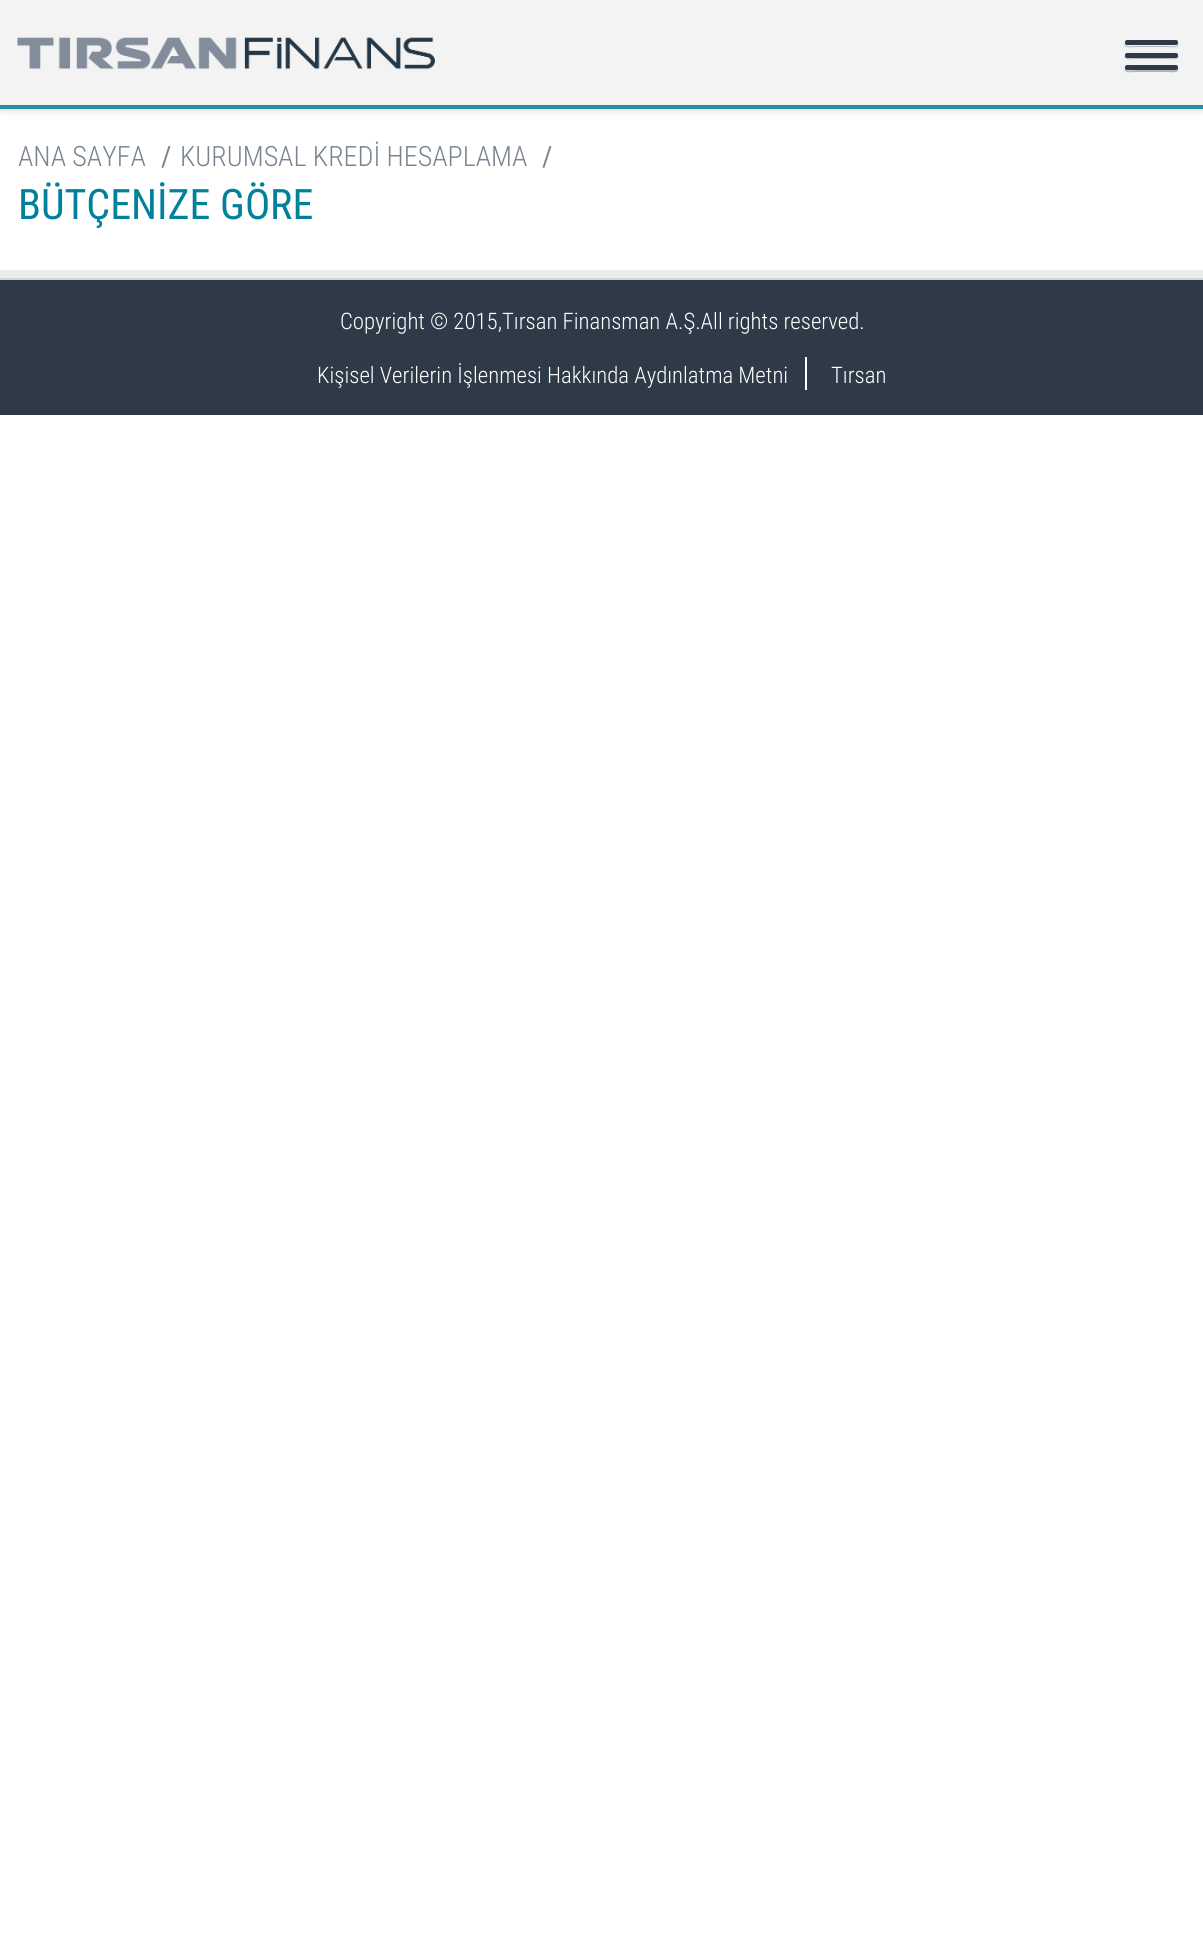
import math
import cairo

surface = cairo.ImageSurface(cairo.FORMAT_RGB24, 1203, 1947)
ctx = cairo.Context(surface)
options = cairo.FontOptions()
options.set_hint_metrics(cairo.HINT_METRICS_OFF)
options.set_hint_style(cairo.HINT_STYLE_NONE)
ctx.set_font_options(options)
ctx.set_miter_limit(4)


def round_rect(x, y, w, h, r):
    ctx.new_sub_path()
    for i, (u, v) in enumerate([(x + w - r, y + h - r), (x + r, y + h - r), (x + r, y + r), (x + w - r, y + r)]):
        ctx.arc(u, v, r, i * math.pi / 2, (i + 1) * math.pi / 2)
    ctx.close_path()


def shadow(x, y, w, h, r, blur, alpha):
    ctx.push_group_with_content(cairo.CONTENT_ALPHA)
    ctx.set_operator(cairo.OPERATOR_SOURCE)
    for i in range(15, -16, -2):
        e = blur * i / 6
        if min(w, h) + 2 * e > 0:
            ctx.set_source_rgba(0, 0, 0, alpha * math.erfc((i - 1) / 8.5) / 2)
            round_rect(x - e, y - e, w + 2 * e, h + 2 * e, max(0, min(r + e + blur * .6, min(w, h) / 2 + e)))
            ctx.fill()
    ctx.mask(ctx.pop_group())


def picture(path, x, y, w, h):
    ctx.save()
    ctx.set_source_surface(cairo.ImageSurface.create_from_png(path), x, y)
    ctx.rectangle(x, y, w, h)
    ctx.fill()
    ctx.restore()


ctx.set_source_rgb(1, 1, 1)
ctx.paint()
ctx.set_source_rgb(0, 0, 0)
shadow(0, 0, 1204, 109, 0, 4.5, 0.2)
ctx.set_source_rgb(0.953, 0.953, 0.953)
ctx.rectangle(0, 0, 1203, 105)
ctx.fill()
ctx.set_source_rgb(0.161, 0.561, 0.62)
ctx.rectangle(0, 105, 1203, 4)
ctx.fill()
picture("img1.png", 17, 37, 418, 33)
ctx.set_source_rgb(0.714, 0.714, 0.714)
ctx.new_path()
ctx.move_to(1125, 43)
ctx.curve_to(1122, 49, 1135, 47, 1135, 47)
ctx.line_to(1168, 47)
ctx.curve_to(1168, 47, 1181, 49, 1178, 43)
ctx.curve_to(1178, 48, 1171, 46, 1168, 46)
ctx.line_to(1135, 46)
ctx.curve_to(1132, 46, 1125, 48, 1125, 43)
ctx.close_path()
ctx.fill()
ctx.set_source_rgb(0.18, 0.227, 0.278)
round_rect(1125, 40, 53, 5, 2)
ctx.fill()
ctx.set_source_rgb(0.714, 0.714, 0.714)
ctx.new_path()
ctx.move_to(1125, 55)
ctx.curve_to(1122, 61, 1135, 59, 1135, 59)
ctx.line_to(1168, 59)
ctx.curve_to(1168, 59, 1181, 61, 1178, 55)
ctx.curve_to(1178, 60, 1172, 58, 1168, 58)
ctx.line_to(1135, 58)
ctx.curve_to(1131, 58, 1125, 60, 1125, 55)
ctx.close_path()
ctx.fill()
ctx.set_source_rgb(0.18, 0.227, 0.278)
round_rect(1125, 53, 53, 5, 2)
ctx.fill()
ctx.set_source_rgb(0.714, 0.714, 0.714)
ctx.new_path()
ctx.move_to(1125, 68)
ctx.curve_to(1122, 74, 1135, 72, 1135, 72)
ctx.line_to(1168, 72)
ctx.curve_to(1168, 72, 1181, 74, 1178, 68)
ctx.curve_to(1178, 69, 1177, 70, 1176, 70)
ctx.line_to(1135, 70)
ctx.curve_to(1135, 70, 1125, 72, 1125, 68)
ctx.close_path()
ctx.fill()
ctx.set_source_rgb(0.18, 0.227, 0.278)
round_rect(1125, 65, 53, 5, 2)
ctx.fill()
ctx.select_font_face("Roboto Condensed Light")
ctx.set_font_size(28)
ctx.set_source_rgb(0.475, 0.518, 0.573)
ctx.move_to(18, 166)
ctx.show_text("ANA SAYFA")
ctx.select_font_face("Roboto Condensed")
ctx.move_to(161, 166)
ctx.show_text("/")
ctx.select_font_face("Roboto Condensed Light")
ctx.move_to(180, 166)
ctx.show_text("KURUMSAL KREDİ HESAPLAMA")
ctx.select_font_face("Roboto Condensed")
ctx.move_to(542, 166)
ctx.show_text("/")
ctx.set_font_size(42)
ctx.set_source_rgb(0.004, 0.506, 0.612)
ctx.move_to(18, 219)
ctx.show_text("BÜTÇENİZE GÖRE")
ctx.set_source_rgb(0.18, 0.227, 0.278)
ctx.rectangle(0, 280, 1203, 135)
ctx.fill()
ctx.set_source_rgb(0.925, 0.925, 0.925)
ctx.rectangle(0, 270, 1203, 8)
ctx.fill()
ctx.set_source_rgb(0.827, 0.827, 0.827)
ctx.rectangle(0, 278, 1203, 2)
ctx.fill()
ctx.select_font_face("Roboto Condensed Light")
ctx.set_font_size(22.75)
ctx.set_source_rgb(1, 1, 1)
ctx.move_to(340, 329)
ctx.show_text("Copyright © 2015,Tırsan Finansman A.Ş.All rights reserved.")
ctx.move_to(317, 383)
ctx.show_text("Kişisel Verilerin İşlenmesi Hakkında Aydınlatma Metni")
ctx.rectangle(805, 357, 2, 33)
ctx.fill()
ctx.move_to(831, 383)
ctx.show_text("Tırsan")
surface.write_to_png("page.png")
